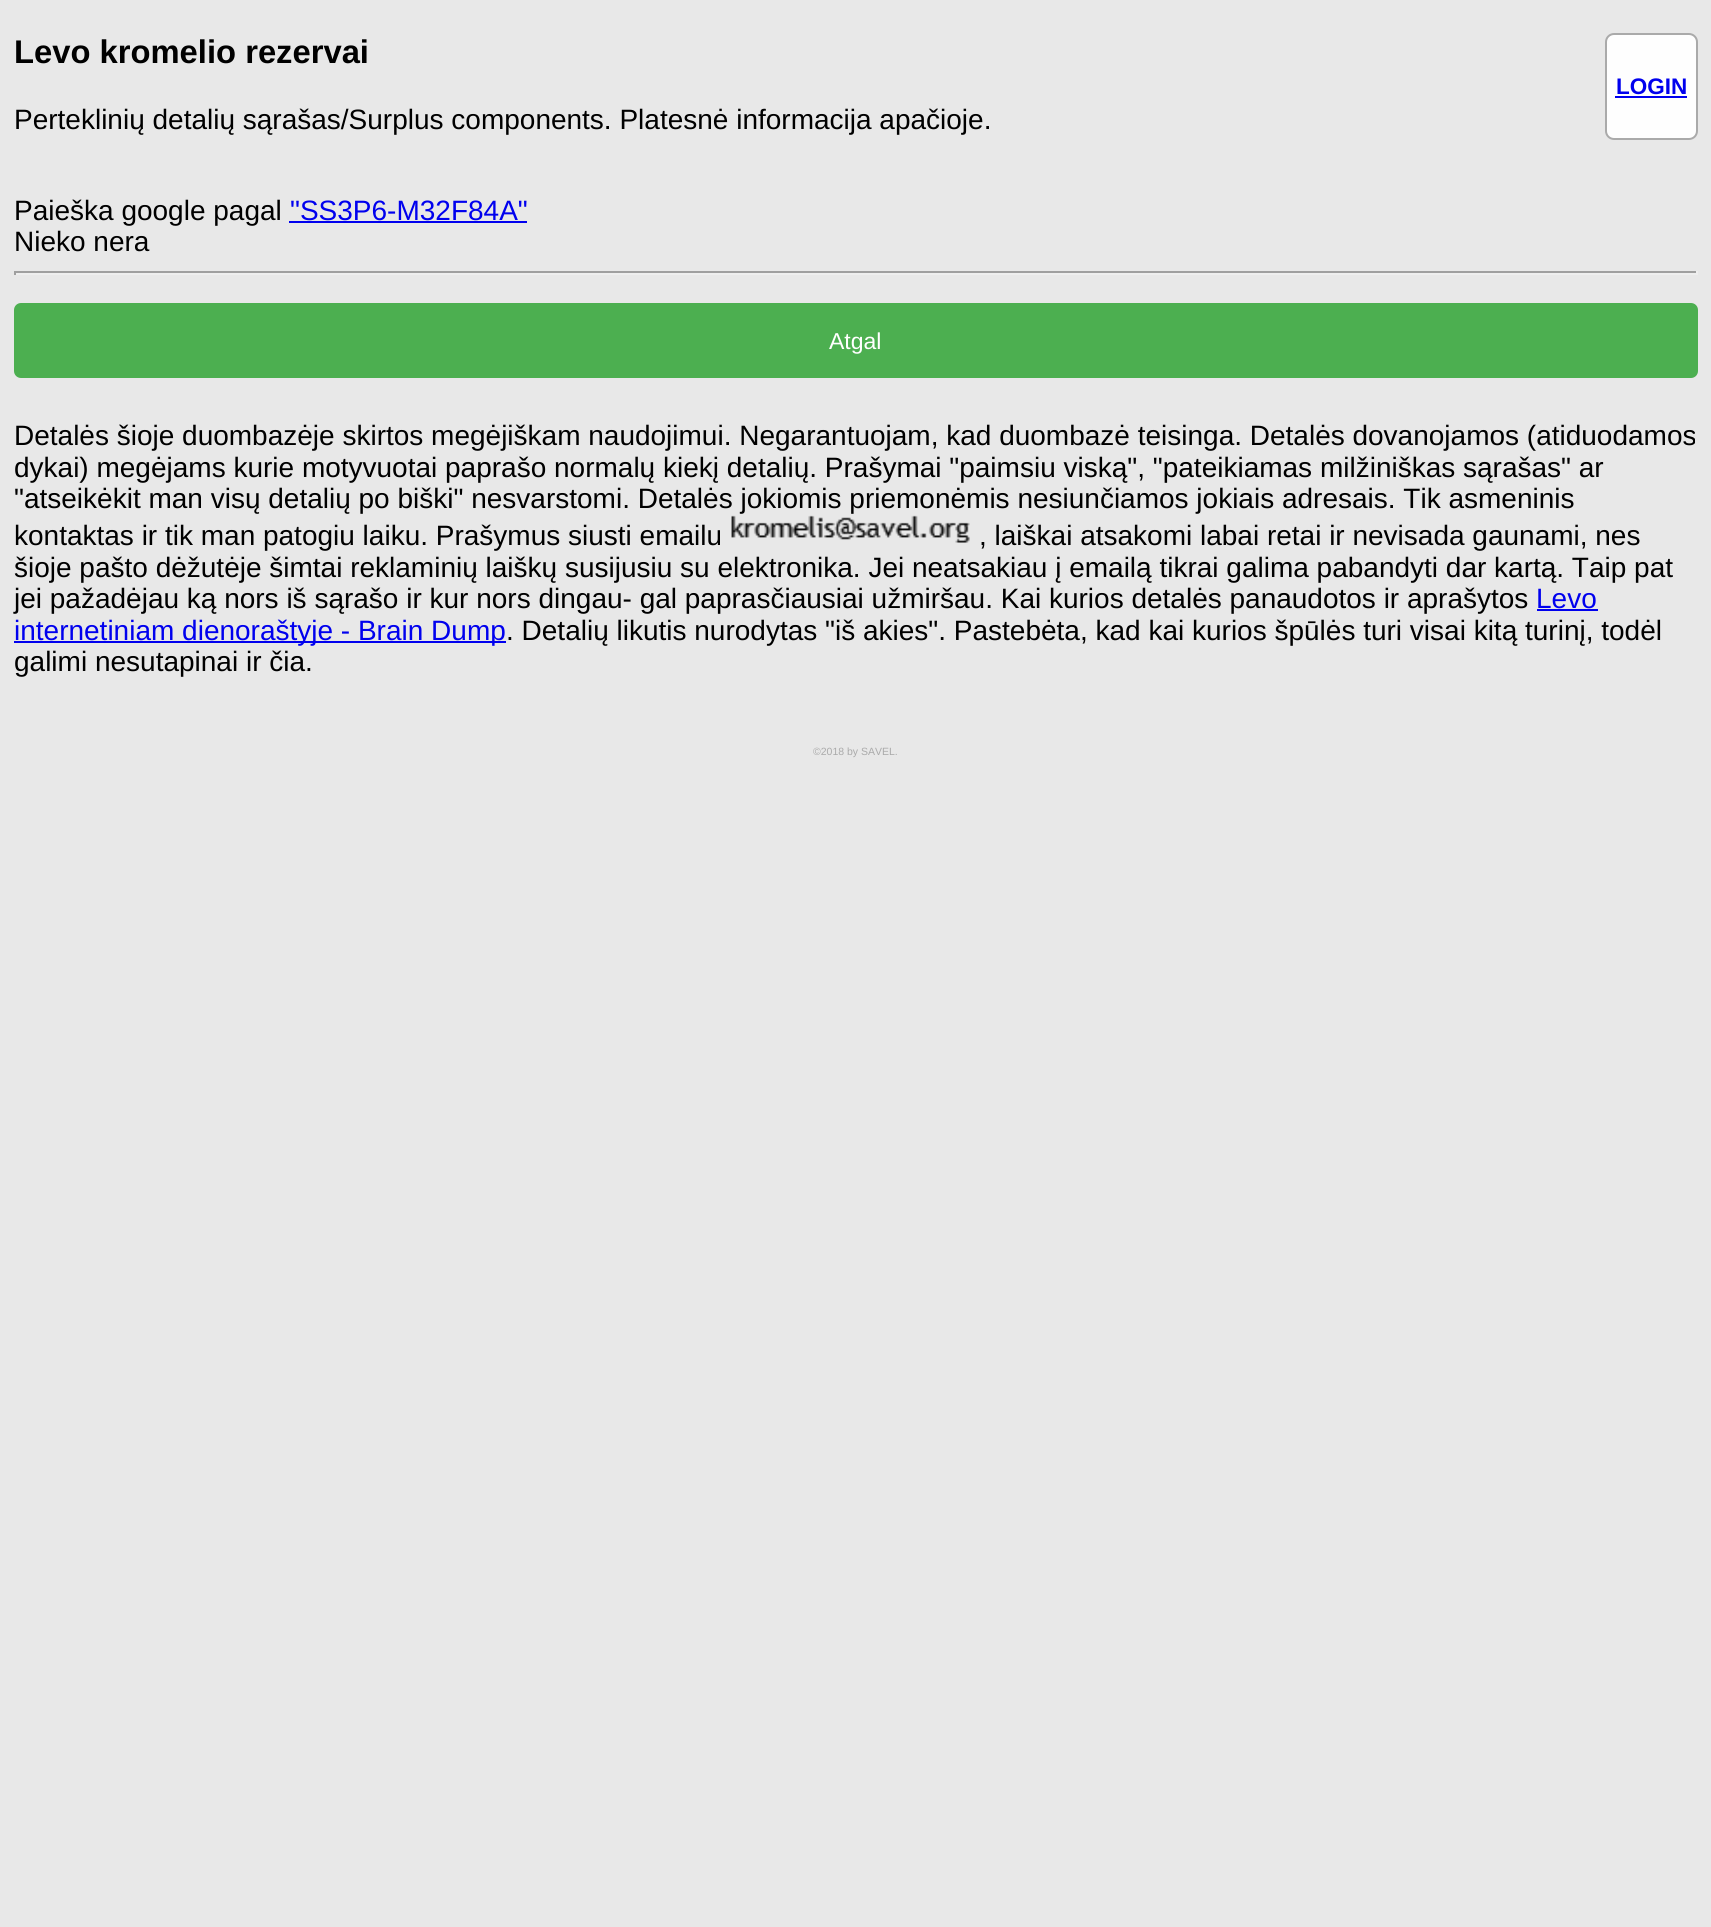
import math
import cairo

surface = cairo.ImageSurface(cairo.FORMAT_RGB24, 1711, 1927)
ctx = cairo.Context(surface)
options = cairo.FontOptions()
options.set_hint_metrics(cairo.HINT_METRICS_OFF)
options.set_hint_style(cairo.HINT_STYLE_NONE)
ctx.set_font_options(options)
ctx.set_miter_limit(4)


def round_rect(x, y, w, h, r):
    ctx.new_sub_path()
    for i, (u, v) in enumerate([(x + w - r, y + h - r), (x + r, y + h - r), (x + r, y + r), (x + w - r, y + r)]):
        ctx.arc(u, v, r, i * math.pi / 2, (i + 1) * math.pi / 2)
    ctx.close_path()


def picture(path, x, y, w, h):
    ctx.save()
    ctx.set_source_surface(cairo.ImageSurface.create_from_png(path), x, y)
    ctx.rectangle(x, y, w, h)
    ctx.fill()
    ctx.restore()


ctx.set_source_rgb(0.91, 0.91, 0.91)
ctx.paint()
ctx.select_font_face("Liberation Sans", cairo.FONT_SLANT_NORMAL, cairo.FONT_WEIGHT_BOLD)
ctx.set_font_size(32.75)
ctx.set_source_rgb(0, 0, 0)
ctx.move_to(14, 63)
ctx.show_text("Levo kromelio rezervai")
ctx.set_source_rgb(0.996, 0.996, 0.996)
round_rect(1606, 34, 91, 105, 8)
ctx.fill_preserve()
ctx.set_source_rgb(0.667, 0.667, 0.667)
ctx.stroke()
ctx.set_font_size(22.5)
ctx.set_source_rgb(0, 0, 0.933)
ctx.move_to(1616, 94)
ctx.show_text("LOGIN")
ctx.rectangle(1615, 96, 72, 2)
ctx.fill()
ctx.select_font_face("Liberation Sans")
ctx.set_font_size(28)
ctx.set_source_rgb(0, 0, 0)
ctx.move_to(14, 129)
ctx.show_text("Perteklinių detalių sąrašas/Surplus components. Platesnė informacija apačioje.")
ctx.move_to(14, 220)
ctx.show_text("Paieška google pagal")
ctx.set_source_rgb(0, 0, 0.933)
ctx.move_to(290, 220)
ctx.show_text("\"SS3P6-M32F84A\"")
ctx.rectangle(289, 221, 238, 2)
ctx.fill()
ctx.set_source_rgb(0, 0, 0)
ctx.move_to(14, 251)
ctx.show_text("Nieko nera")
ctx.set_source_rgb(0.624, 0.624, 0.624)
ctx.rectangle(14, 271, 1684, 2)
ctx.fill()
ctx.set_source_rgb(0.933, 0.933, 0.933)
ctx.rectangle(1696, 271, 2, 4)
ctx.fill()
ctx.rectangle(14, 273, 1684, 2)
ctx.fill()
ctx.set_source_rgb(0.624, 0.624, 0.624)
ctx.rectangle(14, 271, 2, 4)
ctx.fill()
ctx.set_source_rgb(0.298, 0.686, 0.314)
round_rect(14, 303, 1684, 75, 7)
ctx.fill()
ctx.set_font_size(23)
ctx.set_source_rgb(1, 1, 1)
ctx.move_to(829, 349)
ctx.show_text("Atgal")
ctx.set_font_size(28)
ctx.set_source_rgb(0, 0, 0)
ctx.move_to(14, 445)
ctx.show_text("Detalės šioje duombazėje skirtos megėjiškam naudojimui. Negarantuojam, kad duombazė teisinga. Detalės dovanojamos (atiduodamos")
ctx.move_to(14, 477)
ctx.show_text("dykai) megėjams kurie motyvuotai paprašo normalų kiekį detalių. Prašymai \"paimsiu viską\", \"pateikiamas milžiniškas sąrašas\" ar")
ctx.move_to(14, 508)
ctx.show_text("\"atseikėkit man visų detalių po biški\" nesvarstomi. Detalės jokiomis priemonėmis nesiunčiamos jokiais adresais. Tik asmeninis")
ctx.move_to(14, 545)
ctx.show_text("kontaktas ir tik man patogiu laiku. Prašymus siusti emailu")
picture("img1.png", 731, 515, 239, 28)
ctx.move_to(979, 545)
ctx.show_text(", laiškai atsakomi labai retai ir nevisada gaunami, nes")
ctx.move_to(14, 577)
ctx.show_text("šioje pašto dėžutėje šimtai reklaminių laiškų susijusiu su elektronika. Jei neatsakiau į emailą tikrai galima pabandyti dar kartą. Taip pat")
ctx.move_to(14, 608)
ctx.show_text("jei pažadėjau ką nors iš sąrašo ir kur nors dingau- gal paprasčiausiai užmiršau. Kai kurios detalės panaudotos ir aprašytos")
ctx.set_source_rgb(0, 0, 0.933)
ctx.move_to(1536, 608)
ctx.show_text("Levo")
ctx.rectangle(1537, 609, 61, 2)
ctx.fill()
ctx.rectangle(14, 641, 492, 2)
ctx.fill()
ctx.move_to(14, 640)
ctx.show_text("internetiniam dienoraštyje - Brain Dump")
ctx.set_source_rgb(0, 0, 0)
ctx.move_to(506, 640)
ctx.show_text(". Detalių likutis nurodytas \"iš akies\". Pastebėta, kad kai kurios špūlės turi visai kitą turinį, todėl")
ctx.move_to(14, 671)
ctx.show_text("galimi nesutapinai ir čia.")
ctx.set_font_size(10.5)
ctx.set_source_rgb(0.667, 0.667, 0.667)
ctx.move_to(813, 755)
ctx.show_text("©2018 by SAVEL.")
surface.write_to_png("page.png")
